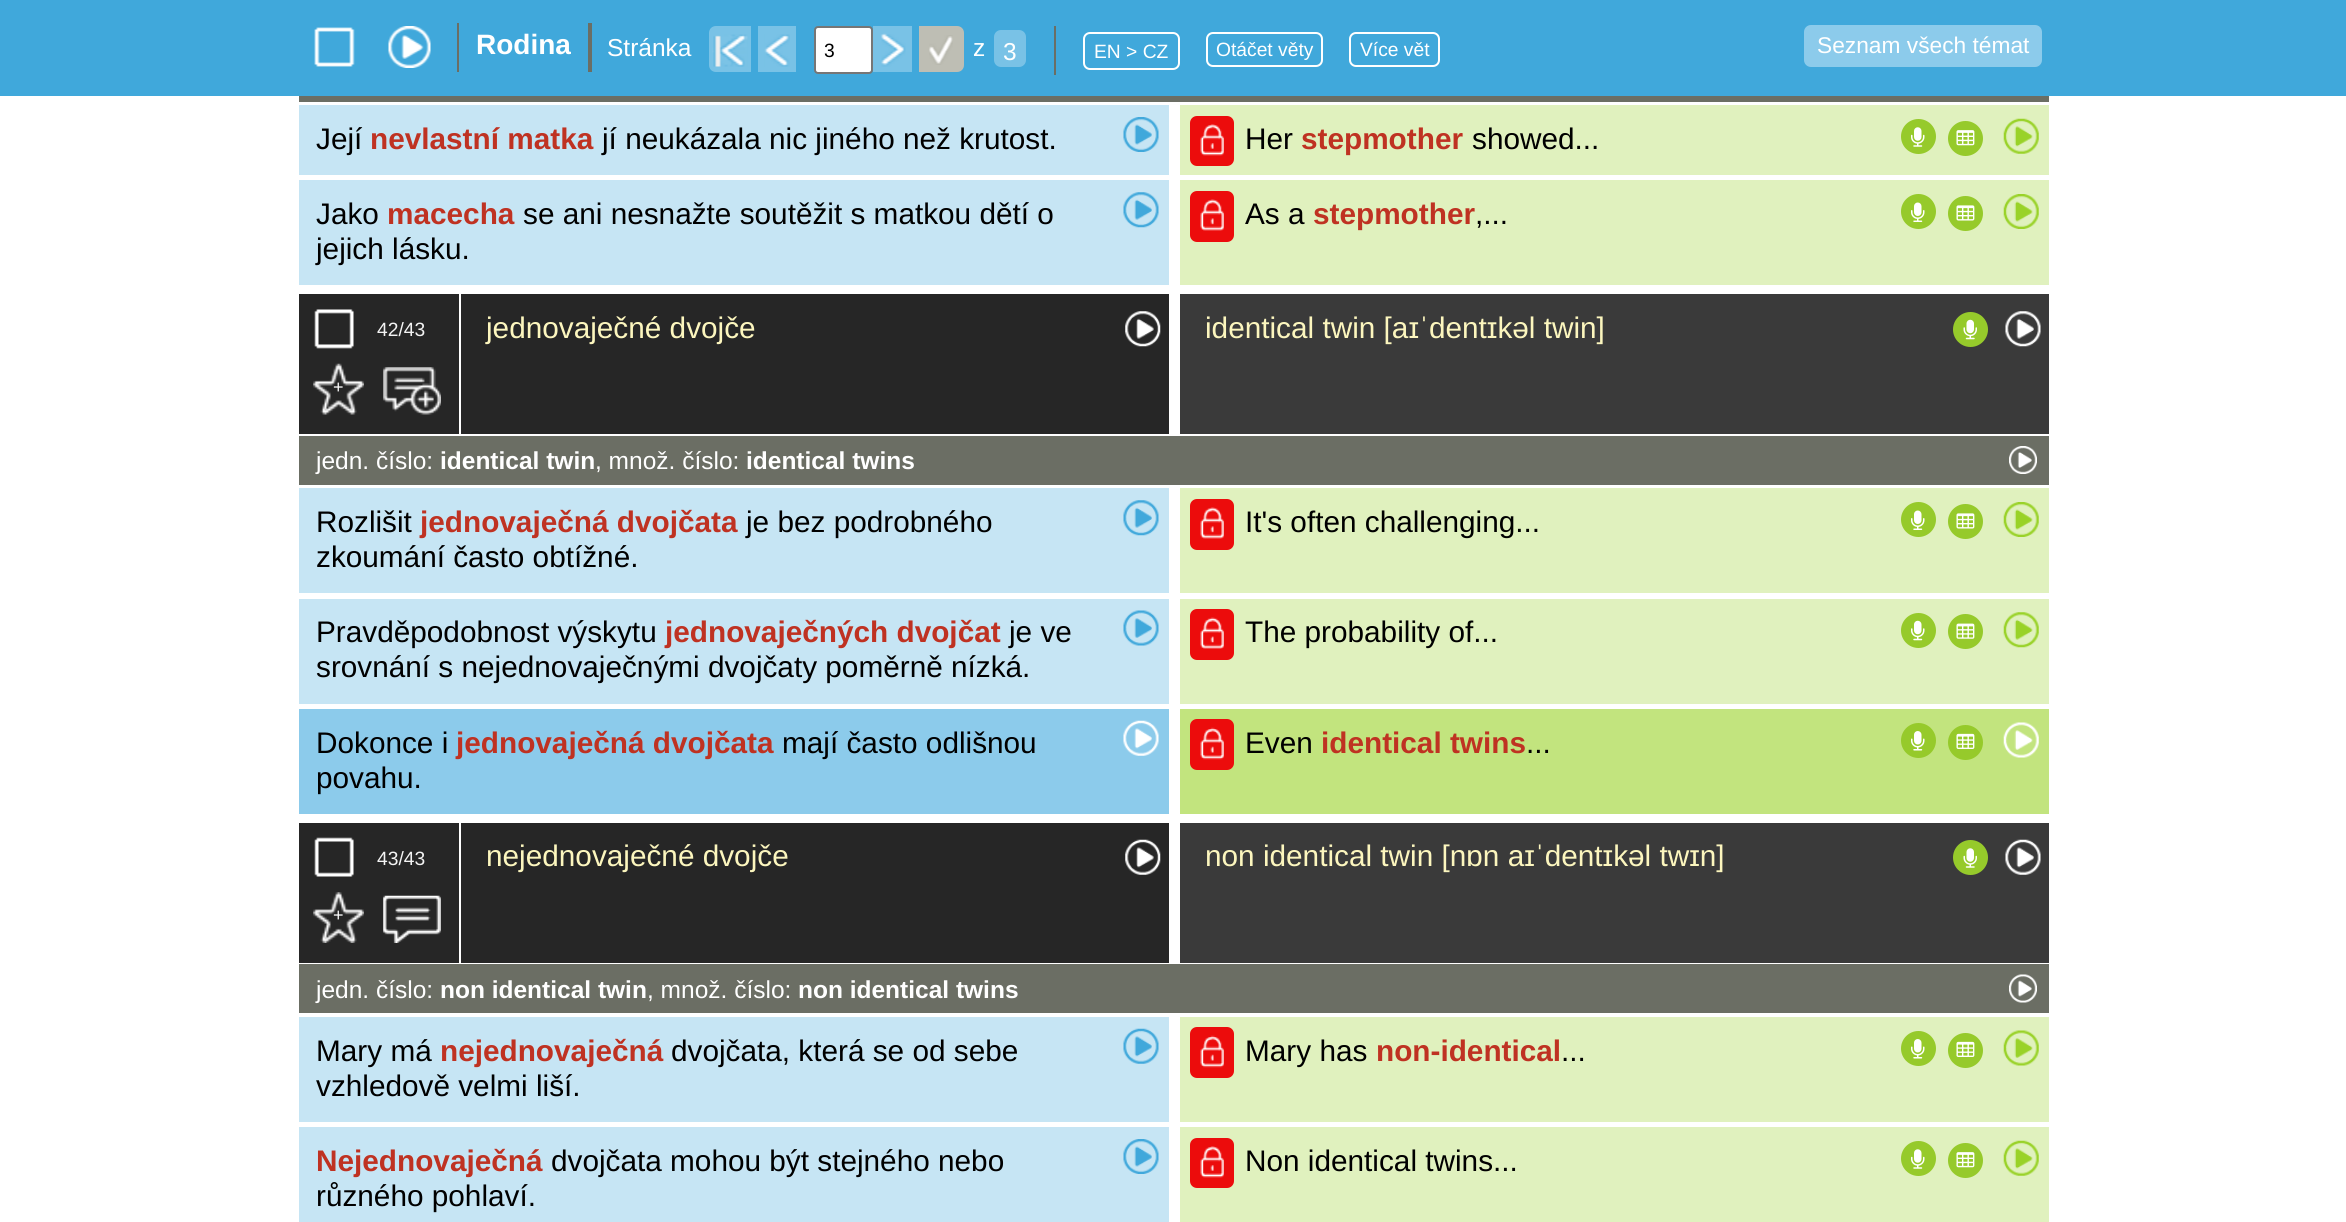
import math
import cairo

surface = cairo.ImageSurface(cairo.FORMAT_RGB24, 2346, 1222)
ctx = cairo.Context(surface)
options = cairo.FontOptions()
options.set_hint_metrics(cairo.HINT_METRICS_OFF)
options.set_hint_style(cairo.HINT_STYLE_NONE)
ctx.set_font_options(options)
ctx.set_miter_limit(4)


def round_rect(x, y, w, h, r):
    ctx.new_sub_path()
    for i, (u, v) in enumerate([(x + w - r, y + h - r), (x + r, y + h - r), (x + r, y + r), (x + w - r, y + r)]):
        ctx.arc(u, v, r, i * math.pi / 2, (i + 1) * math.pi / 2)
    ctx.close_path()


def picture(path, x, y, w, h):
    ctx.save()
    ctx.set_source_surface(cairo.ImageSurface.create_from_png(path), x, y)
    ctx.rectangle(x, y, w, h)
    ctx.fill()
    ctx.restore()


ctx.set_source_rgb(1, 1, 1)
ctx.paint()
ctx.set_source_rgb(0.251, 0.659, 0.859)
ctx.rectangle(0, 0, 2346, 96)
ctx.fill()
picture("img1.png", 314, 27, 41, 40)
picture("img2.png", 388, 26, 43, 42)
ctx.set_source_rgb(0.42, 0.431, 0.392)
ctx.rectangle(457, 23, 2, 49)
ctx.fill()
ctx.select_font_face("Liberation Sans", cairo.FONT_SLANT_NORMAL, cairo.FONT_WEIGHT_BOLD)
ctx.set_font_size(28)
ctx.set_source_rgb(1, 1, 1)
ctx.move_to(476, 54)
ctx.show_text("Rodina")
ctx.set_source_rgb(0.42, 0.431, 0.392)
ctx.rectangle(588, 23, 4, 49)
ctx.fill()
ctx.select_font_face("Liberation Sans")
ctx.set_font_size(24.5)
ctx.set_source_rgb(1, 1, 1)
ctx.move_to(607, 56)
ctx.show_text("Stránka")
ctx.set_source_rgb(0.475, 0.761, 0.902)
ctx.new_path()
ctx.move_to(716, 26)
ctx.line_to(751, 26)
ctx.line_to(751, 72)
ctx.line_to(716, 72)
ctx.curve_to(712, 72, 709, 69, 709, 65)
ctx.line_to(709, 33)
ctx.curve_to(709, 29, 712, 26, 716, 26)
ctx.close_path()
ctx.fill()
picture("img3.png", 712, 34, 36, 33)
ctx.rectangle(758, 26, 38, 46)
ctx.fill()
picture("img4.png", 764, 34, 26, 33)
ctx.set_source_rgb(1, 1, 1)
round_rect(815, 27, 57, 46, 3)
ctx.fill_preserve()
ctx.set_source_rgb(0.463, 0.463, 0.463)
ctx.stroke()
ctx.set_font_size(19.25)
ctx.set_source_rgb(0, 0, 0)
ctx.move_to(824, 57)
ctx.show_text("3")
ctx.set_source_rgb(0.475, 0.761, 0.902)
ctx.rectangle(873, 26, 39, 46)
ctx.fill()
picture("img5.png", 880, 33, 26, 34)
ctx.set_source_rgb(0.745, 0.745, 0.706)
ctx.new_path()
ctx.move_to(919, 26)
ctx.line_to(957, 26)
ctx.curve_to(961, 26, 964, 29, 964, 33)
ctx.line_to(964, 65)
ctx.curve_to(964, 69, 961, 72, 957, 72)
ctx.line_to(919, 72)
ctx.close_path()
ctx.fill()
picture("img6.png", 929, 35, 24, 30)
ctx.set_font_size(24.5)
ctx.set_source_rgb(1, 1, 1)
ctx.move_to(973, 56)
ctx.show_text("z")
ctx.set_source_rgb(0.475, 0.761, 0.902)
round_rect(994, 30, 32, 37, 7)
ctx.fill()
ctx.set_source_rgb(1, 1, 1)
ctx.move_to(1003, 60)
ctx.show_text("3")
ctx.set_source_rgb(0.42, 0.431, 0.392)
ctx.rectangle(1054, 26, 2, 49)
ctx.fill()
round_rect(1084, 33, 95, 36, 6)
ctx.set_source_rgb(1, 1, 1)
ctx.stroke()
ctx.set_font_size(19.25)
ctx.move_to(1094, 58)
ctx.show_text("EN > CZ")
round_rect(1207, 33, 115, 33, 6)
ctx.stroke()
ctx.move_to(1216, 56)
ctx.show_text("Otáčet věty")
round_rect(1350, 33, 89, 33, 6)
ctx.stroke()
ctx.move_to(1360, 56)
ctx.show_text("Více vět")
ctx.set_source_rgb(0.549, 0.796, 0.918)
round_rect(1804, 25, 238, 42, 7)
ctx.fill()
ctx.set_font_size(22.75)
ctx.set_source_rgb(1, 1, 1)
ctx.move_to(1817, 53)
ctx.show_text("Seznam všech témat")
ctx.set_source_rgb(0.42, 0.431, 0.392)
ctx.rectangle(299, 96, 1750, 6)
ctx.fill()
ctx.set_source_rgb(0.776, 0.898, 0.957)
ctx.rectangle(299, 105, 870, 70)
ctx.fill()
ctx.set_font_size(29.75)
ctx.set_source_rgb(0, 0, 0)
ctx.move_to(316, 149)
ctx.show_text("Její")
ctx.select_font_face("Liberation Sans", cairo.FONT_SLANT_NORMAL, cairo.FONT_WEIGHT_BOLD)
ctx.set_source_rgb(0.749, 0.196, 0.133)
ctx.move_to(370, 149)
ctx.show_text("nevlastní matka")
ctx.select_font_face("Liberation Sans")
ctx.set_source_rgb(0, 0, 0)
ctx.move_to(602, 149)
ctx.show_text("jí neukázala nic jiného než krutost.")
picture("img7.png", 1123, 117, 36, 35)
ctx.set_source_rgb(0.878, 0.945, 0.745)
ctx.rectangle(1180, 105, 869, 70)
ctx.fill()
ctx.set_source_rgb(0.922, 0.047, 0.047)
round_rect(1190, 116, 44, 50, 7)
ctx.fill()
picture("img8.png", 1200, 124, 24, 32)
ctx.set_source_rgb(0, 0, 0)
ctx.move_to(1245, 149)
ctx.show_text("Her")
ctx.select_font_face("Liberation Sans", cairo.FONT_SLANT_NORMAL, cairo.FONT_WEIGHT_BOLD)
ctx.set_source_rgb(0.749, 0.196, 0.133)
ctx.move_to(1301, 149)
ctx.show_text("stepmother")
ctx.select_font_face("Liberation Sans")
ctx.set_source_rgb(0, 0, 0)
ctx.move_to(1472, 149)
ctx.show_text("showed...")
ctx.set_source_rgb(0.588, 0.792, 0.169)
ctx.new_path()
ctx.arc(1918.5, 136.5, 17.5, 0, 2 * math.pi)
ctx.fill()
picture("img9.png", 1911, 127, 14, 20)
ctx.arc(1965.5, 138.5, 17.5, 0, 2 * math.pi)
ctx.fill()
picture("img10.png", 1956, 130, 19, 16)
picture("img11.png", 2003, 118, 36, 36)
ctx.set_source_rgb(0.776, 0.898, 0.957)
ctx.rectangle(299, 180, 870, 105)
ctx.fill()
ctx.set_source_rgb(0, 0, 0)
ctx.move_to(316, 224)
ctx.show_text("Jako")
ctx.select_font_face("Liberation Sans", cairo.FONT_SLANT_NORMAL, cairo.FONT_WEIGHT_BOLD)
ctx.set_source_rgb(0.749, 0.196, 0.133)
ctx.move_to(387, 224)
ctx.show_text("macecha")
ctx.select_font_face("Liberation Sans")
ctx.set_source_rgb(0, 0, 0)
ctx.move_to(523, 224)
ctx.show_text("se ani nesnažte soutěžit s matkou dětí o")
picture("img12.png", 1123, 192, 36, 36)
ctx.move_to(316, 259)
ctx.show_text("jejich lásku.")
ctx.set_source_rgb(0.878, 0.945, 0.745)
ctx.rectangle(1180, 180, 869, 105)
ctx.fill()
ctx.set_source_rgb(0.922, 0.047, 0.047)
round_rect(1190, 191, 44, 51, 7)
ctx.fill()
picture("img13.png", 1200, 199, 24, 32)
ctx.set_source_rgb(0, 0, 0)
ctx.move_to(1245, 224)
ctx.show_text("As a")
ctx.select_font_face("Liberation Sans", cairo.FONT_SLANT_NORMAL, cairo.FONT_WEIGHT_BOLD)
ctx.set_source_rgb(0.749, 0.196, 0.133)
ctx.move_to(1313, 224)
ctx.show_text("stepmother")
ctx.select_font_face("Liberation Sans")
ctx.set_source_rgb(0, 0, 0)
ctx.move_to(1475, 224)
ctx.show_text(",...")
ctx.set_source_rgb(0.588, 0.792, 0.169)
ctx.new_path()
ctx.arc(1918.5, 211.5, 17.5, 0, 2 * math.pi)
ctx.fill()
picture("img14.png", 1911, 202, 14, 20)
ctx.arc(1965.5, 213.5, 17.5, 0, 2 * math.pi)
ctx.fill()
picture("img15.png", 1956, 205, 19, 16)
picture("img16.png", 2003, 194, 36, 35)
ctx.set_source_rgb(0.149, 0.149, 0.149)
ctx.rectangle(299, 294, 870, 140)
ctx.fill()
ctx.set_source_rgb(1, 1, 1)
ctx.rectangle(459, 294, 2, 140)
ctx.fill()
picture("img17.png", 314, 309, 40, 40)
ctx.set_font_size(19.25)
ctx.set_source_rgb(0.953, 0.953, 0.953)
ctx.move_to(377, 336)
ctx.show_text("42/43")
ctx.set_font_size(18)
ctx.set_source_rgb(1, 1, 1)
ctx.move_to(333, 393)
ctx.show_text("+")
picture("img18.png", 313, 363, 51, 52)
picture("img19.png", 383, 367, 58, 48)
ctx.set_font_size(29.75)
ctx.set_source_rgb(0.988, 0.961, 0.745)
ctx.move_to(486, 338)
ctx.show_text("jednovaječné dvojče")
picture("img20.png", 1125, 311, 36, 36)
ctx.set_source_rgb(0.227, 0.227, 0.227)
ctx.rectangle(1180, 294, 869, 140)
ctx.fill()
ctx.set_source_rgb(0.988, 0.961, 0.745)
ctx.move_to(1205, 338)
ctx.show_text("identical twin [aɪˈdentɪkəl twin]")
ctx.set_source_rgb(0.588, 0.792, 0.169)
ctx.new_path()
ctx.arc(1970.5, 329.5, 17.5, 0, 2 * math.pi)
ctx.fill()
picture("img21.png", 1963, 319, 14, 21)
picture("img22.png", 2005, 311, 36, 36)
ctx.set_source_rgb(0.42, 0.431, 0.392)
ctx.rectangle(299, 436, 1750, 49)
ctx.fill()
ctx.set_font_size(24.5)
ctx.set_source_rgb(1, 1, 1)
ctx.move_to(316, 469)
ctx.show_text("jedn. číslo:")
ctx.select_font_face("Liberation Sans", cairo.FONT_SLANT_NORMAL, cairo.FONT_WEIGHT_BOLD)
ctx.move_to(440, 469)
ctx.show_text("identical twin")
ctx.select_font_face("Liberation Sans")
ctx.move_to(595, 469)
ctx.show_text(", množ. číslo:")
ctx.select_font_face("Liberation Sans", cairo.FONT_SLANT_NORMAL, cairo.FONT_WEIGHT_BOLD)
ctx.move_to(746, 469)
ctx.show_text("identical twins")
picture("img23.png", 2009, 446, 28, 28)
ctx.set_source_rgb(0.776, 0.898, 0.957)
ctx.rectangle(299, 488, 870, 105)
ctx.fill()
ctx.select_font_face("Liberation Sans")
ctx.set_font_size(29.75)
ctx.set_source_rgb(0, 0, 0)
ctx.move_to(316, 532)
ctx.show_text("Rozlišit")
ctx.select_font_face("Liberation Sans", cairo.FONT_SLANT_NORMAL, cairo.FONT_WEIGHT_BOLD)
ctx.set_source_rgb(0.749, 0.196, 0.133)
ctx.move_to(420, 532)
ctx.show_text("jednovaječná dvojčata")
ctx.select_font_face("Liberation Sans")
ctx.set_source_rgb(0, 0, 0)
ctx.move_to(746, 532)
ctx.show_text("je bez podrobného")
picture("img12.png", 1123, 500, 36, 36)
ctx.move_to(316, 567)
ctx.show_text("zkoumání často obtížné.")
ctx.set_source_rgb(0.878, 0.945, 0.745)
ctx.rectangle(1180, 488, 869, 105)
ctx.fill()
ctx.set_source_rgb(0.922, 0.047, 0.047)
round_rect(1190, 499, 44, 51, 7)
ctx.fill()
picture("img13.png", 1200, 507, 24, 32)
ctx.set_source_rgb(0, 0, 0)
ctx.move_to(1245, 532)
ctx.show_text("It's often challenging...")
ctx.set_source_rgb(0.588, 0.792, 0.169)
ctx.new_path()
ctx.arc(1918.5, 519.5, 17.5, 0, 2 * math.pi)
ctx.fill()
picture("img14.png", 1911, 510, 14, 20)
ctx.arc(1965.5, 521.5, 17.5, 0, 2 * math.pi)
ctx.fill()
picture("img15.png", 1956, 513, 19, 16)
picture("img16.png", 2003, 502, 36, 35)
ctx.set_source_rgb(0.776, 0.898, 0.957)
ctx.rectangle(299, 599, 870, 105)
ctx.fill()
ctx.set_source_rgb(0, 0, 0)
ctx.move_to(316, 642)
ctx.show_text("Pravděpodobnost výskytu")
ctx.select_font_face("Liberation Sans", cairo.FONT_SLANT_NORMAL, cairo.FONT_WEIGHT_BOLD)
ctx.set_source_rgb(0.749, 0.196, 0.133)
ctx.move_to(665, 642)
ctx.show_text("jednovaječných dvojčat")
ctx.select_font_face("Liberation Sans")
ctx.set_source_rgb(0, 0, 0)
ctx.move_to(1009, 642)
ctx.show_text("je ve")
picture("img24.png", 1123, 610, 36, 36)
ctx.move_to(316, 677)
ctx.show_text("srovnání s nejednovaječnými dvojčaty poměrně nízká.")
ctx.set_source_rgb(0.878, 0.945, 0.745)
ctx.rectangle(1180, 599, 869, 105)
ctx.fill()
ctx.set_source_rgb(0.922, 0.047, 0.047)
round_rect(1190, 609, 44, 51, 7)
ctx.fill()
picture("img25.png", 1200, 617, 24, 32)
ctx.set_source_rgb(0, 0, 0)
ctx.move_to(1245, 642)
ctx.show_text("The probability of...")
ctx.set_source_rgb(0.588, 0.792, 0.169)
ctx.new_path()
ctx.arc(1918.5, 630.5, 17.5, 0, 2 * math.pi)
ctx.fill()
picture("img26.png", 1911, 620, 14, 21)
ctx.arc(1965.5, 631.5, 17.5, 0, 2 * math.pi)
ctx.fill()
picture("img27.png", 1956, 623, 19, 16)
picture("img28.png", 2003, 612, 36, 36)
ctx.set_source_rgb(0.549, 0.796, 0.918)
ctx.rectangle(299, 709, 870, 105)
ctx.fill()
ctx.set_source_rgb(0, 0, 0)
ctx.move_to(316, 753)
ctx.show_text("Dokonce i")
ctx.select_font_face("Liberation Sans", cairo.FONT_SLANT_NORMAL, cairo.FONT_WEIGHT_BOLD)
ctx.set_source_rgb(0.749, 0.196, 0.133)
ctx.move_to(456, 753)
ctx.show_text("jednovaječná dvojčata")
ctx.select_font_face("Liberation Sans")
ctx.set_source_rgb(0, 0, 0)
ctx.move_to(782, 753)
ctx.show_text("mají často odlišnou")
picture("img29.png", 1123, 720, 36, 36)
ctx.move_to(316, 788)
ctx.show_text("povahu.")
ctx.set_source_rgb(0.761, 0.894, 0.494)
ctx.rectangle(1180, 709, 869, 105)
ctx.fill()
ctx.set_source_rgb(0.922, 0.047, 0.047)
round_rect(1190, 719, 44, 51, 7)
ctx.fill()
picture("img30.png", 1200, 727, 24, 33)
ctx.set_source_rgb(0, 0, 0)
ctx.move_to(1245, 753)
ctx.show_text("Even")
ctx.select_font_face("Liberation Sans", cairo.FONT_SLANT_NORMAL, cairo.FONT_WEIGHT_BOLD)
ctx.set_source_rgb(0.749, 0.196, 0.133)
ctx.move_to(1321, 753)
ctx.show_text("identical twins")
ctx.select_font_face("Liberation Sans")
ctx.set_source_rgb(0, 0, 0)
ctx.move_to(1526, 753)
ctx.show_text("...")
ctx.set_source_rgb(0.588, 0.792, 0.169)
ctx.new_path()
ctx.arc(1918.5, 740.5, 17.5, 0, 2 * math.pi)
ctx.fill()
picture("img31.png", 1911, 731, 14, 20)
ctx.arc(1965.5, 742.5, 17.5, 0, 2 * math.pi)
ctx.fill()
picture("img32.png", 1956, 733, 19, 16)
picture("img33.png", 2003, 722, 36, 36)
ctx.set_source_rgb(0.149, 0.149, 0.149)
ctx.rectangle(299, 823, 870, 140)
ctx.fill()
ctx.set_source_rgb(1, 1, 1)
ctx.rectangle(459, 823, 2, 140)
ctx.fill()
picture("img34.png", 314, 837, 40, 40)
ctx.set_font_size(19.25)
ctx.set_source_rgb(0.953, 0.953, 0.953)
ctx.move_to(377, 865)
ctx.show_text("43/43")
ctx.set_font_size(18)
ctx.set_source_rgb(1, 1, 1)
ctx.move_to(333, 921)
ctx.show_text("+")
picture("img35.png", 313, 892, 51, 51)
picture("img36.png", 383, 895, 58, 48)
ctx.set_font_size(29.75)
ctx.set_source_rgb(0.988, 0.961, 0.745)
ctx.move_to(486, 866)
ctx.show_text("nejednovaječné dvojče")
picture("img37.png", 1125, 839, 36, 36)
ctx.set_source_rgb(0.227, 0.227, 0.227)
ctx.rectangle(1180, 823, 869, 140)
ctx.fill()
ctx.set_source_rgb(0.988, 0.961, 0.745)
ctx.move_to(1205, 866)
ctx.show_text("non identical twin [nɒn aɪˈdentɪkəl twɪn]")
ctx.set_source_rgb(0.588, 0.792, 0.169)
ctx.new_path()
ctx.arc(1970.5, 857.5, 17.5, 0, 2 * math.pi)
ctx.fill()
picture("img38.png", 1963, 848, 14, 20)
picture("img39.png", 2005, 839, 36, 36)
ctx.set_source_rgb(0.42, 0.431, 0.392)
ctx.rectangle(299, 964, 1750, 49)
ctx.fill()
ctx.set_font_size(24.5)
ctx.set_source_rgb(1, 1, 1)
ctx.move_to(316, 998)
ctx.show_text("jedn. číslo:")
ctx.select_font_face("Liberation Sans", cairo.FONT_SLANT_NORMAL, cairo.FONT_WEIGHT_BOLD)
ctx.move_to(440, 998)
ctx.show_text("non identical twin")
ctx.select_font_face("Liberation Sans")
ctx.move_to(647, 998)
ctx.show_text(", množ. číslo:")
ctx.select_font_face("Liberation Sans", cairo.FONT_SLANT_NORMAL, cairo.FONT_WEIGHT_BOLD)
ctx.move_to(798, 998)
ctx.show_text("non identical twins")
picture("img40.png", 2009, 974, 28, 29)
ctx.set_source_rgb(0.776, 0.898, 0.957)
ctx.rectangle(299, 1017, 870, 105)
ctx.fill()
ctx.select_font_face("Liberation Sans")
ctx.set_font_size(29.75)
ctx.set_source_rgb(0, 0, 0)
ctx.move_to(316, 1061)
ctx.show_text("Mary má")
ctx.select_font_face("Liberation Sans", cairo.FONT_SLANT_NORMAL, cairo.FONT_WEIGHT_BOLD)
ctx.set_source_rgb(0.749, 0.196, 0.133)
ctx.move_to(440, 1061)
ctx.show_text("nejednovaječná")
ctx.select_font_face("Liberation Sans")
ctx.set_source_rgb(0, 0, 0)
ctx.move_to(671, 1061)
ctx.show_text("dvojčata, která se od sebe")
picture("img41.png", 1123, 1028, 36, 36)
ctx.move_to(316, 1096)
ctx.show_text("vzhledově velmi liší.")
ctx.set_source_rgb(0.878, 0.945, 0.745)
ctx.rectangle(1180, 1017, 869, 105)
ctx.fill()
ctx.set_source_rgb(0.922, 0.047, 0.047)
round_rect(1190, 1027, 44, 51, 7)
ctx.fill()
picture("img30.png", 1200, 1035, 24, 33)
ctx.set_source_rgb(0, 0, 0)
ctx.move_to(1245, 1061)
ctx.show_text("Mary has")
ctx.select_font_face("Liberation Sans", cairo.FONT_SLANT_NORMAL, cairo.FONT_WEIGHT_BOLD)
ctx.set_source_rgb(0.749, 0.196, 0.133)
ctx.move_to(1376, 1061)
ctx.show_text("non-identical")
ctx.select_font_face("Liberation Sans")
ctx.set_source_rgb(0, 0, 0)
ctx.move_to(1561, 1061)
ctx.show_text("...")
ctx.set_source_rgb(0.588, 0.792, 0.169)
ctx.new_path()
ctx.arc(1918.5, 1048.5, 17.5, 0, 2 * math.pi)
ctx.fill()
picture("img31.png", 1911, 1039, 14, 20)
ctx.arc(1965.5, 1050.5, 17.5, 0, 2 * math.pi)
ctx.fill()
picture("img32.png", 1956, 1041, 19, 16)
picture("img42.png", 2003, 1030, 36, 36)
ctx.set_source_rgb(0.776, 0.898, 0.957)
ctx.rectangle(299, 1127, 870, 95)
ctx.fill()
ctx.select_font_face("Liberation Sans", cairo.FONT_SLANT_NORMAL, cairo.FONT_WEIGHT_BOLD)
ctx.set_source_rgb(0.749, 0.196, 0.133)
ctx.move_to(316, 1171)
ctx.show_text("Nejednovaječná")
ctx.select_font_face("Liberation Sans")
ctx.set_source_rgb(0, 0, 0)
ctx.move_to(551, 1171)
ctx.show_text("dvojčata mohou být stejného nebo")
picture("img7.png", 1123, 1139, 36, 35)
ctx.move_to(316, 1206)
ctx.show_text("různého pohlaví.")
ctx.set_source_rgb(0.878, 0.945, 0.745)
ctx.rectangle(1180, 1127, 869, 95)
ctx.fill()
ctx.set_source_rgb(0.922, 0.047, 0.047)
round_rect(1190, 1138, 44, 50, 7)
ctx.fill()
picture("img8.png", 1200, 1146, 24, 32)
ctx.set_source_rgb(0, 0, 0)
ctx.move_to(1245, 1171)
ctx.show_text("Non identical twins...")
ctx.set_source_rgb(0.588, 0.792, 0.169)
ctx.new_path()
ctx.arc(1918.5, 1158.5, 17.5, 0, 2 * math.pi)
ctx.fill()
picture("img9.png", 1911, 1149, 14, 20)
ctx.arc(1965.5, 1160.5, 17.5, 0, 2 * math.pi)
ctx.fill()
picture("img10.png", 1956, 1152, 19, 16)
picture("img11.png", 2003, 1140, 36, 36)
surface.write_to_png("page.png")
